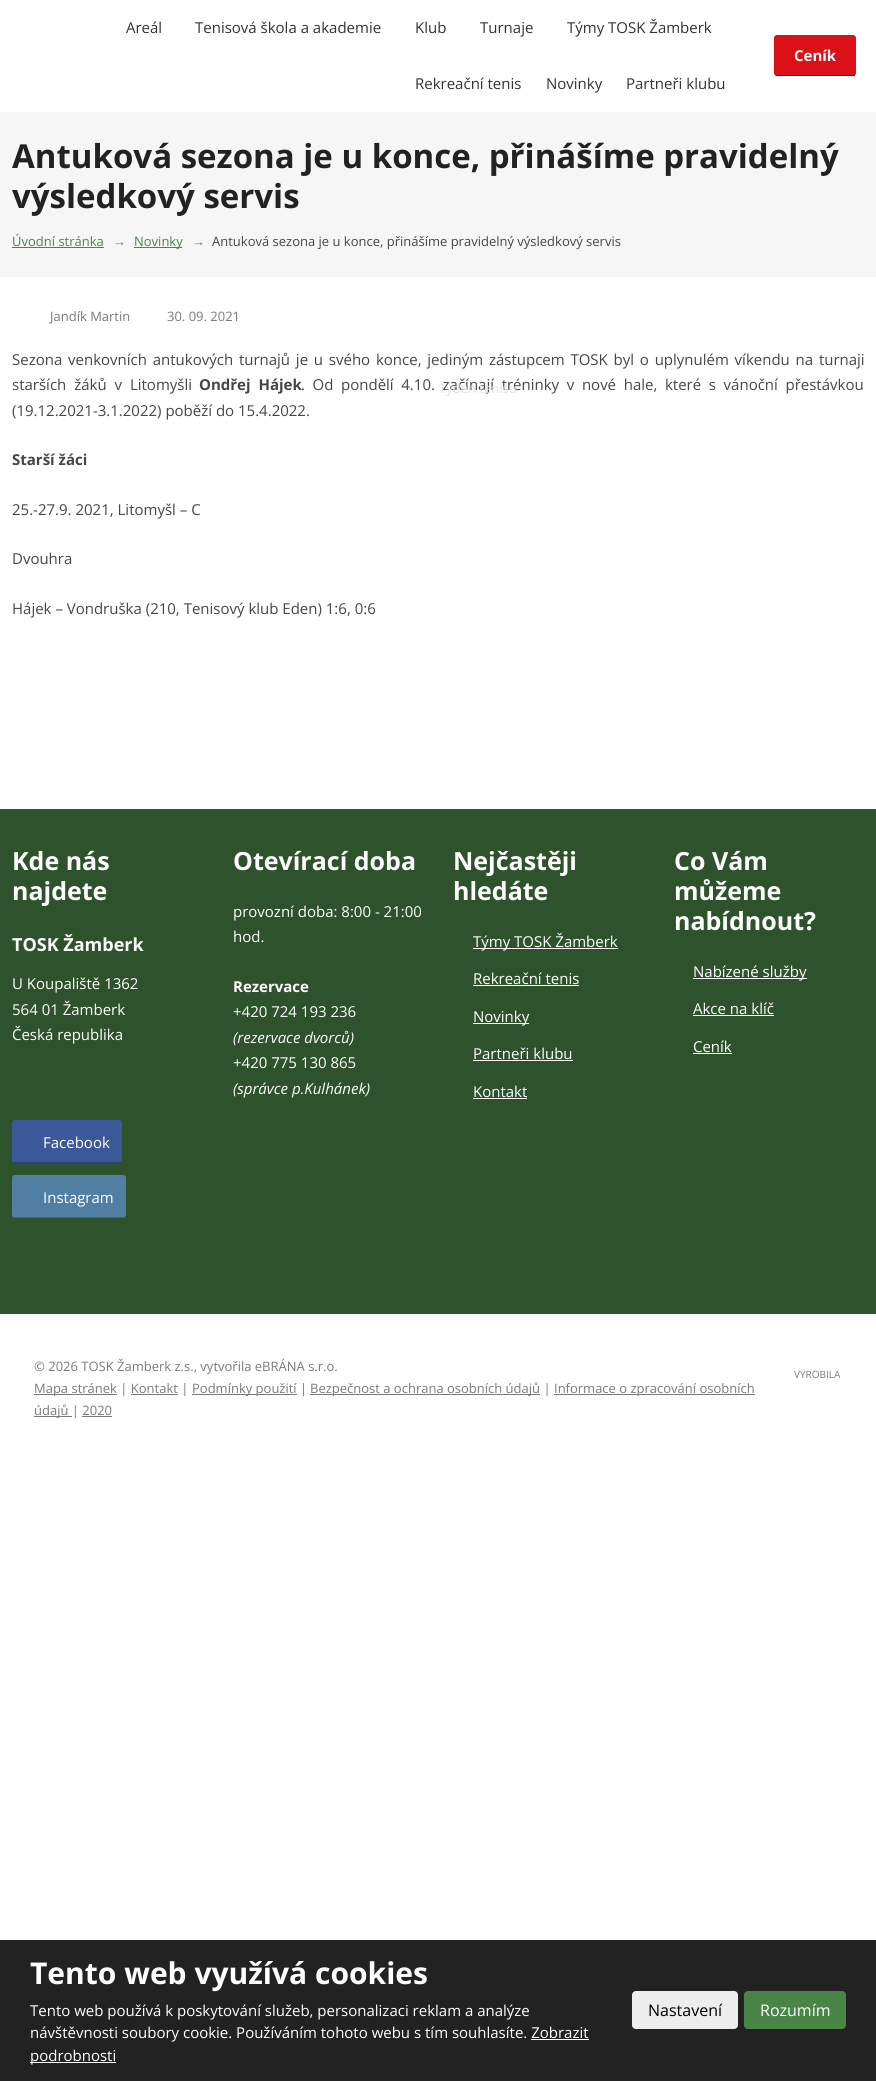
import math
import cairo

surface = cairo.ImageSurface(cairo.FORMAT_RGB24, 876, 2081)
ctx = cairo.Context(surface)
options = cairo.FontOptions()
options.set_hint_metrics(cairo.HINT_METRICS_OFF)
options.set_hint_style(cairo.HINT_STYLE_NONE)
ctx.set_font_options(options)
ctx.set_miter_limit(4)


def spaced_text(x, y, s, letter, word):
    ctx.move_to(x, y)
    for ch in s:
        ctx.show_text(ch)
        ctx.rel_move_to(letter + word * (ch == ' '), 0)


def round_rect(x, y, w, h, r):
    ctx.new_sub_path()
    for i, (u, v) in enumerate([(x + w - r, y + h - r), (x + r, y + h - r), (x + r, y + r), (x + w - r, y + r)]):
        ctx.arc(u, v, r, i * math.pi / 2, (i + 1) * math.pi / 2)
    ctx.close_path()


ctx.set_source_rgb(1, 1, 1)
ctx.paint()
ctx.select_font_face("Open Sans")
ctx.set_font_size(15)
ctx.set_source_rgb(0.2, 0.2, 0.2)
ctx.move_to(126, 33)
ctx.show_text("Areál")
ctx.move_to(195, 33)
ctx.show_text("Tenisová škola a akademie")
ctx.move_to(415, 33)
ctx.show_text("Klub")
ctx.set_source_rgb(0.275, 0.275, 0.275)
spaced_text(301, 390, ". Od pondělí 4.10. začínají tréninky v nové hale, které s vánoční přestávkou", 0, 3.75)
ctx.set_font_size(13)
ctx.set_source_rgb(0.878, 0.878, 0.878)
ctx.move_to(439, 393)
ctx.show_text("Týden tenisu")
ctx.set_font_size(15)
ctx.set_source_rgb(0.2, 0.2, 0.2)
ctx.move_to(567, 33)
ctx.show_text("Týmy TOSK Žamberk")
ctx.move_to(480, 33)
ctx.show_text("Turnaje")
ctx.move_to(415, 89)
ctx.show_text("Rekreační tenis")
ctx.move_to(546, 89)
ctx.show_text("Novinky")
ctx.move_to(626, 89)
ctx.show_text("Partneři klubu")
ctx.set_source_rgb(0.859, 0.067, 0.094)
round_rect(774, 35, 82, 41, 3)
ctx.fill()
ctx.set_source_rgb(0.486, 0.039, 0.055)
ctx.rectangle(776, 75, 79, 1)
ctx.fill()
ctx.select_font_face("Open Sans", cairo.FONT_SLANT_NORMAL, cairo.FONT_WEIGHT_BOLD)
ctx.set_source_rgb(1, 1, 1)
ctx.move_to(794, 61)
ctx.show_text("Ceník")
ctx.set_source_rgb(0.961, 0.961, 0.961)
ctx.rectangle(0, 112, 876, 165)
ctx.fill()
ctx.set_font_size(33)
ctx.set_source_rgb(0.133, 0.133, 0.133)
ctx.move_to(12, 168)
ctx.show_text("Antuková sezona je u konce, přinášíme pravidelný")
ctx.move_to(12, 208)
ctx.show_text("výsledkový servis")
ctx.select_font_face("Open Sans")
ctx.set_font_size(13)
ctx.set_source_rgb(0.286, 0.522, 0.267)
ctx.move_to(12, 246)
ctx.show_text("Úvodní stránka")
ctx.rectangle(12, 247, 92, 1)
ctx.fill()
ctx.select_font_face("Liberation Sans", cairo.FONT_SLANT_NORMAL, cairo.FONT_WEIGHT_BOLD)
ctx.move_to(113, 246)
ctx.show_text("→")
ctx.rectangle(134, 247, 48, 1)
ctx.fill()
ctx.select_font_face("Open Sans")
ctx.move_to(134, 246)
ctx.show_text("Novinky")
ctx.select_font_face("Liberation Sans", cairo.FONT_SLANT_NORMAL, cairo.FONT_WEIGHT_BOLD)
ctx.move_to(192, 246)
ctx.show_text("→")
ctx.select_font_face("Open Sans")
ctx.set_source_rgb(0.275, 0.275, 0.275)
ctx.move_to(212, 246)
ctx.show_text("Antuková sezona je u konce, přinášíme pravidelný výsledkový servis")
ctx.set_source_rgb(0.478, 0.478, 0.478)
ctx.move_to(50, 321)
ctx.show_text("Jandík Martin")
ctx.move_to(167, 321)
ctx.show_text("30. 09. 2021")
ctx.set_font_size(15)
ctx.set_source_rgb(0.275, 0.275, 0.275)
spaced_text(12, 365, "Sezona venkovních antukových turnajů je u svého konce, jediným zástupcem TOSK byl o uplynulém víkendu na turnaji", 0, 1.9)
spaced_text(12, 390, "starších žáků v Litomyšli", 0, 4)
ctx.select_font_face("Open Sans", cairo.FONT_SLANT_NORMAL, cairo.FONT_WEIGHT_BOLD)
spaced_text(199, 390, "Ondřej Hájek", 0, 4)
ctx.select_font_face("Open Sans")
ctx.move_to(12, 416)
ctx.show_text("(19.12.2021-3.1.2022) poběží do 15.4.2022.")
ctx.select_font_face("Open Sans", cairo.FONT_SLANT_NORMAL, cairo.FONT_WEIGHT_BOLD)
ctx.move_to(12, 465)
ctx.show_text("Starší žáci")
ctx.select_font_face("Open Sans")
ctx.move_to(12, 515)
ctx.show_text("25.-27.9. 2021, Litomyšl – C")
ctx.move_to(12, 564)
ctx.show_text("Dvouhra")
ctx.move_to(12, 614)
ctx.show_text("Hájek – Vondruška (210, Tenisový klub Eden) 1:6, 0:6")
ctx.set_source_rgb(0.18, 0.322, 0.169)
ctx.rectangle(0, 809, 876, 505)
ctx.fill()
ctx.select_font_face("Open Sans", cairo.FONT_SLANT_NORMAL, cairo.FONT_WEIGHT_BOLD)
ctx.set_font_size(25)
ctx.set_source_rgb(1, 1, 1)
ctx.move_to(12, 870)
ctx.show_text("Kde nás")
ctx.move_to(12, 900)
ctx.show_text("najdete")
ctx.set_font_size(18)
ctx.move_to(12, 951)
ctx.show_text("TOSK Žamberk")
ctx.select_font_face("Open Sans")
ctx.set_font_size(15)
ctx.move_to(12, 989)
ctx.show_text("U Koupaliště 1362")
ctx.move_to(12, 1015)
ctx.show_text("564 01 Žamberk")
ctx.move_to(12, 1040)
ctx.show_text("Česká republika")
ctx.set_source_rgb(0.231, 0.349, 0.596)
round_rect(12, 1120, 110, 43, 3)
ctx.fill()
ctx.set_source_rgb(0.176, 0.263, 0.451)
ctx.rectangle(14, 1162, 107, 1)
ctx.fill()
ctx.set_source_rgb(1, 1, 1)
ctx.move_to(43, 1148)
ctx.show_text("Facebook")
ctx.set_source_rgb(0.318, 0.498, 0.643)
round_rect(12, 1175, 114, 43, 3)
ctx.fill()
ctx.set_source_rgb(0.251, 0.396, 0.51)
ctx.rectangle(14, 1217, 111, 1)
ctx.fill()
ctx.set_source_rgb(1, 1, 1)
ctx.move_to(43, 1203)
ctx.show_text("Instagram")
ctx.select_font_face("Open Sans", cairo.FONT_SLANT_NORMAL, cairo.FONT_WEIGHT_BOLD)
ctx.set_font_size(25)
ctx.move_to(233, 870)
ctx.show_text("Otevírací doba")
ctx.select_font_face("Open Sans")
ctx.set_font_size(15)
ctx.move_to(233, 917)
ctx.show_text("provozní doba: 8:00 - 21:00")
ctx.move_to(233, 942)
ctx.show_text("hod.")
ctx.select_font_face("Open Sans", cairo.FONT_SLANT_NORMAL, cairo.FONT_WEIGHT_BOLD)
ctx.move_to(233, 992)
ctx.show_text("Rezervace")
ctx.select_font_face("Open Sans")
ctx.move_to(233, 1017)
ctx.show_text("+420 724 193 236")
ctx.select_font_face("Open Sans", cairo.FONT_SLANT_ITALIC)
ctx.move_to(233, 1043)
ctx.show_text("(rezervace dvorců)")
ctx.select_font_face("Open Sans")
ctx.move_to(233, 1068)
ctx.show_text("+420 775 130 865")
ctx.select_font_face("Open Sans", cairo.FONT_SLANT_ITALIC)
ctx.move_to(233, 1094)
ctx.show_text("(správce p.Kulhánek)")
ctx.select_font_face("Open Sans", cairo.FONT_SLANT_NORMAL, cairo.FONT_WEIGHT_BOLD)
ctx.set_font_size(25)
ctx.move_to(453, 870)
ctx.show_text("Nejčastěji")
ctx.move_to(453, 900)
ctx.show_text("hledáte")
ctx.rectangle(473, 948, 145, 1)
ctx.fill()
ctx.select_font_face("Open Sans")
ctx.set_font_size(15)
ctx.move_to(473, 947)
ctx.show_text("Týmy TOSK Žamberk")
ctx.move_to(473, 984)
ctx.show_text("Rekreační tenis")
ctx.rectangle(473, 985, 106, 1)
ctx.fill()
ctx.rectangle(473, 1023, 56, 1)
ctx.fill()
ctx.move_to(473, 1022)
ctx.show_text("Novinky")
ctx.move_to(473, 1059)
ctx.show_text("Partneři klubu")
ctx.rectangle(473, 1060, 100, 1)
ctx.fill()
ctx.move_to(473, 1097)
ctx.show_text("Kontakt")
ctx.rectangle(473, 1098, 54, 1)
ctx.fill()
ctx.select_font_face("Open Sans", cairo.FONT_SLANT_NORMAL, cairo.FONT_WEIGHT_BOLD)
ctx.set_font_size(25)
ctx.move_to(674, 870)
ctx.show_text("Co Vám")
ctx.move_to(674, 900)
ctx.show_text("můžeme")
ctx.move_to(674, 930)
ctx.show_text("nabídnout?")
ctx.rectangle(693, 978, 114, 1)
ctx.fill()
ctx.select_font_face("Open Sans")
ctx.set_font_size(15)
ctx.move_to(693, 977)
ctx.show_text("Nabízené služby")
ctx.move_to(693, 1014)
ctx.show_text("Akce na klíč")
ctx.rectangle(693, 1015, 81, 1)
ctx.fill()
ctx.move_to(693, 1052)
ctx.show_text("Ceník")
ctx.rectangle(693, 1053, 39, 1)
ctx.fill()
ctx.set_font_size(13)
ctx.set_source_rgb(0.478, 0.478, 0.478)
ctx.move_to(34, 1371)
ctx.show_text("© 2026 TOSK Žamberk z.s., vytvořila eBRÁNA s.r.o.")
ctx.rectangle(34, 1394, 83, 1)
ctx.fill()
ctx.move_to(34, 1393)
ctx.show_text("Mapa stránek | Kontakt |")
ctx.rectangle(192, 1394, 105, 1)
ctx.fill()
ctx.move_to(192, 1393)
ctx.show_text("Podmínky použití |")
ctx.rectangle(310, 1394, 230, 1)
ctx.fill()
ctx.move_to(310, 1393)
ctx.show_text("Bezpečnost a ochrana osobních údajů |")
ctx.rectangle(554, 1394, 201, 1)
ctx.fill()
ctx.move_to(554, 1393)
ctx.show_text("Informace o zpracování osobních")
ctx.rectangle(131, 1394, 47, 1)
ctx.fill()
ctx.rectangle(34, 1416, 38, 1)
ctx.fill()
ctx.move_to(34, 1415)
ctx.show_text("údajů | 2020")
ctx.rectangle(82, 1416, 30, 1)
ctx.fill()
ctx.set_font_size(10)
ctx.move_to(794, 1378)
ctx.show_text("VYROBILA")
ctx.set_source_rgb(0.133, 0.133, 0.133)
ctx.rectangle(0, 1940, 876, 141)
ctx.fill()
ctx.select_font_face("Open Sans", cairo.FONT_SLANT_NORMAL, cairo.FONT_WEIGHT_BOLD)
ctx.set_font_size(30)
ctx.set_source_rgb(1, 1, 1)
ctx.move_to(30, 1984)
ctx.show_text("Tento web využívá cookies")
ctx.select_font_face("Open Sans")
ctx.set_font_size(15)
ctx.move_to(30, 2016)
ctx.show_text("Tento web používá k poskytování služeb, personalizaci reklam a analýze")
ctx.move_to(30, 2038)
ctx.show_text("návštěvnosti soubory cookie. Používáním tohoto webu s tím souhlasíte. Zobrazit")
ctx.rectangle(30, 2062, 86, 1)
ctx.fill()
ctx.move_to(30, 2061)
ctx.show_text("podrobnosti")
ctx.rectangle(531, 2039, 58, 1)
ctx.fill()
ctx.set_source_rgb(0.929, 0.929, 0.929)
round_rect(632, 1991, 106, 38, 4)
ctx.fill()
ctx.set_font_size(16)
ctx.set_source_rgb(0, 0, 0)
ctx.move_to(648, 2016)
ctx.show_text("Nastavení")
ctx.set_source_rgb(0.286, 0.522, 0.267)
round_rect(744, 1991, 102, 38, 4)
ctx.fill()
ctx.set_source_rgb(1, 1, 1)
ctx.move_to(760, 2016)
ctx.show_text("Rozumím")
surface.write_to_png("page.png")
